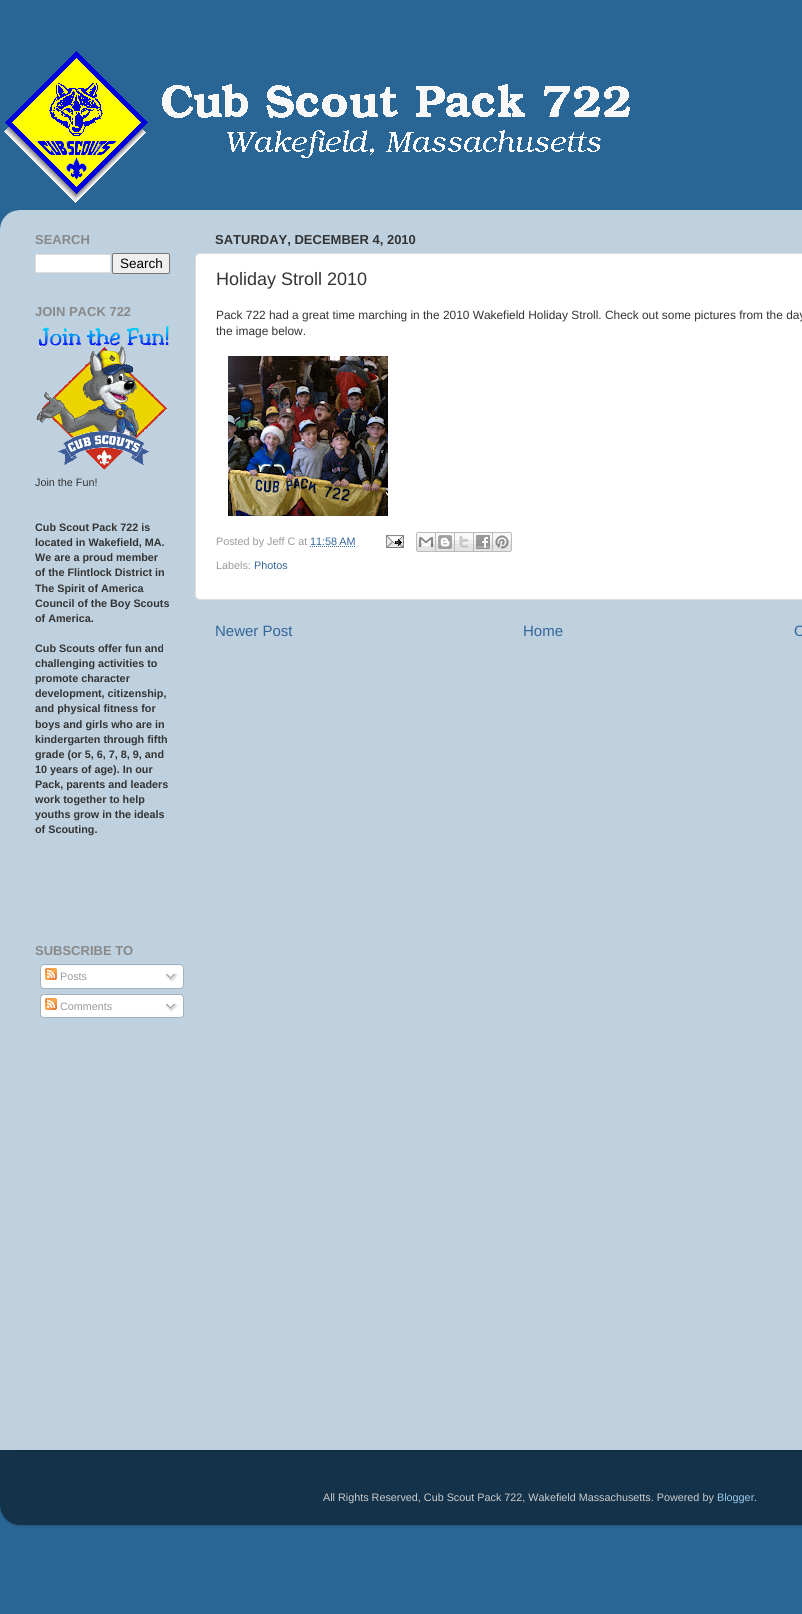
import math
import cairo

surface = cairo.ImageSurface(cairo.FORMAT_RGB24, 802, 1614)
ctx = cairo.Context(surface)
options = cairo.FontOptions()
options.set_hint_metrics(cairo.HINT_METRICS_OFF)
options.set_hint_style(cairo.HINT_STYLE_NONE)
ctx.set_font_options(options)
ctx.set_miter_limit(4)


def round_rect(x, y, w, h, r):
    ctx.new_sub_path()
    for i, (u, v) in enumerate([(x + w - r, y + h - r), (x + r, y + h - r), (x + r, y + r), (x + w - r, y + r)]):
        ctx.arc(u, v, r, i * math.pi / 2, (i + 1) * math.pi / 2)
    ctx.close_path()


def shadow(x, y, w, h, r, blur, alpha):
    ctx.push_group_with_content(cairo.CONTENT_ALPHA)
    ctx.set_operator(cairo.OPERATOR_SOURCE)
    for i in range(15, -16, -2):
        e = blur * i / 6
        if min(w, h) + 2 * e > 0:
            ctx.set_source_rgba(0, 0, 0, alpha * math.erfc((i - 1) / 8.5) / 2)
            round_rect(x - e, y - e, w + 2 * e, h + 2 * e, max(0, min(r + e + blur * .6, min(w, h) / 2 + e)))
            ctx.fill()
    ctx.mask(ctx.pop_group())


def picture(path, x, y, w, h):
    ctx.save()
    ctx.set_source_surface(cairo.ImageSurface.create_from_png(path), x, y)
    ctx.rectangle(x, y, w, h)
    ctx.fill()
    ctx.restore()


ctx.set_source_rgb(0.161, 0.4, 0.584)
ctx.paint()
picture("img1.png", 4, 51, 626, 152)
ctx.save()
ctx.set_fill_rule(cairo.FILL_RULE_EVEN_ODD)
ctx.new_path()
ctx.move_to(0, 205)
ctx.line_to(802, 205)
ctx.line_to(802, 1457)
ctx.line_to(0, 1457)
ctx.close_path()
ctx.move_to(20, 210)
ctx.line_to(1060, 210)
ctx.curve_to(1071, 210, 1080, 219, 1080, 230)
ctx.line_to(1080, 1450)
ctx.line_to(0, 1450)
ctx.line_to(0, 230)
ctx.curve_to(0, 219, 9, 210, 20, 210)
ctx.close_path()
ctx.clip()
ctx.set_source_rgb(0, 0, 0)
shadow(0, 211, 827, 1240, 20, 1.5, 0.15)
ctx.restore()
picture("img2.png", 0, 210, 802, 1240)
ctx.select_font_face("Liberation Sans", cairo.FONT_SLANT_NORMAL, cairo.FONT_WEIGHT_BOLD)
ctx.set_font_size(13)
ctx.set_source_rgb(0.533, 0.533, 0.533)
ctx.move_to(35, 244)
ctx.show_text("SEARCH")
ctx.set_source_rgb(1, 1, 1)
ctx.rectangle(35.5, 254.5, 75, 18)
ctx.fill_preserve()
ctx.set_source_rgb(0.867, 0.867, 0.867)
ctx.set_line_width(1)
ctx.stroke()
ctx.set_source_rgb(0.937, 0.937, 0.937)
round_rect(112.5, 253.5, 57, 20, 1.5)
ctx.fill_preserve()
ctx.set_source_rgb(0.463, 0.463, 0.463)
ctx.stroke()
ctx.select_font_face("Liberation Sans")
ctx.set_font_size(13.5)
ctx.set_source_rgb(0, 0, 0)
ctx.move_to(120, 268)
ctx.show_text("Search")
ctx.select_font_face("Liberation Sans", cairo.FONT_SLANT_NORMAL, cairo.FONT_WEIGHT_BOLD)
ctx.set_font_size(13)
ctx.set_source_rgb(0.533, 0.533, 0.533)
ctx.move_to(35, 316)
ctx.show_text("JOIN PACK 722")
picture("img3.png", 36, 326, 133, 144)
ctx.select_font_face("Liberation Sans")
ctx.set_font_size(10.8)
ctx.set_source_rgb(0.2, 0.2, 0.2)
ctx.move_to(35, 486)
ctx.show_text("Join the Fun!")
ctx.select_font_face("Liberation Sans", cairo.FONT_SLANT_NORMAL, cairo.FONT_WEIGHT_BOLD)
ctx.move_to(35, 531)
ctx.show_text("Cub Scout Pack 722 is")
ctx.move_to(35, 546)
ctx.show_text("located in Wakefield, MA.")
ctx.move_to(35, 561)
ctx.show_text("We are a proud member")
ctx.move_to(35, 576)
ctx.show_text("of the Flintlock District in")
ctx.move_to(35, 592)
ctx.show_text("The Spirit of America")
ctx.move_to(35, 607)
ctx.show_text("Council of the Boy Scouts")
ctx.move_to(35, 622)
ctx.show_text("of America.")
ctx.move_to(35, 652)
ctx.show_text("Cub Scouts offer fun and")
ctx.move_to(35, 667)
ctx.show_text("challenging activities to")
ctx.move_to(35, 682)
ctx.show_text("promote character")
ctx.move_to(35, 697)
ctx.show_text("development, citizenship,")
ctx.move_to(35, 712)
ctx.show_text("and physical fitness for")
ctx.move_to(35, 728)
ctx.show_text("boys and girls who are in")
ctx.move_to(35, 743)
ctx.show_text("kindergarten through fifth")
ctx.move_to(35, 758)
ctx.show_text("grade (or 5, 6, 7, 8, 9, and")
ctx.move_to(35, 773)
ctx.show_text("10 years of age). In our")
ctx.move_to(35, 788)
ctx.show_text("Pack, parents and leaders")
ctx.move_to(35, 803)
ctx.show_text("work together to help")
ctx.move_to(35, 818)
ctx.show_text("youths grow in the ideals")
ctx.move_to(35, 833)
ctx.show_text("of Scouting.")
ctx.set_font_size(13)
ctx.set_source_rgb(0.533, 0.533, 0.533)
ctx.move_to(35, 955)
ctx.show_text("SUBSCRIBE TO")
picture("img4.png", 40, 964, 144, 22)
picture("img5.png", 45, 968, 12, 12)
ctx.select_font_face("Liberation Sans")
ctx.set_font_size(10.8)
ctx.set_source_rgb(0.6, 0.6, 0.6)
ctx.move_to(60, 980)
ctx.show_text("Posts")
picture("img6.png", 165, 973, 13, 9)
picture("img7.png", 40, 986, 144, 3)
picture("img8.png", 40, 994, 144, 21)
picture("img5.png", 45, 998, 12, 12)
ctx.move_to(60, 1010)
ctx.show_text("Comments")
picture("img6.png", 165, 1003, 13, 9)
picture("img7.png", 40, 1015, 144, 3)
ctx.select_font_face("Liberation Sans", cairo.FONT_SLANT_NORMAL, cairo.FONT_WEIGHT_BOLD)
ctx.set_font_size(13)
ctx.set_source_rgb(0.2, 0.2, 0.2)
ctx.move_to(215, 244)
ctx.show_text("SATURDAY, DECEMBER 4, 2010")
ctx.set_source_rgb(1, 1, 1)
round_rect(195.5, 253.5, 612, 346, 4.5)
ctx.fill_preserve()
ctx.set_source_rgb(0.867, 0.867, 0.867)
ctx.stroke()
ctx.select_font_face("Liberation Sans")
ctx.set_font_size(18)
ctx.set_source_rgb(0.2, 0.2, 0.2)
ctx.move_to(216, 285)
ctx.show_text("Holiday Stroll 2010")
ctx.set_font_size(11.9)
ctx.move_to(216, 319)
ctx.show_text("Pack 722 had a great time marching in the 2010 Wakefield Holiday Stroll. Check out some pictures from the day")
ctx.move_to(216, 335)
ctx.show_text("the image below.")
picture("img9.png", 228, 356, 160, 160)
ctx.set_font_size(10.8)
ctx.set_source_rgb(0.6, 0.6, 0.6)
ctx.move_to(216, 545)
ctx.show_text("Posted by Jeff C at")
ctx.set_source_rgb(0.2, 0.4, 0.6)
ctx.move_to(310, 545)
ctx.show_text("11:58 AM")
ctx.new_path()
ctx.move_to(310, 546.5)
ctx.line_to(355.5, 546.5)
ctx.set_dash([1, 1])
ctx.stroke()
picture("img10.png", 386, 535, 18, 13)
picture("img11.png", 416, 532, 20, 20)
picture("img12.png", 436, 532, 19, 20)
picture("img13.png", 455, 532, 19, 20)
picture("img14.png", 474, 532, 19, 20)
picture("img15.png", 493, 532, 19, 20)
ctx.set_source_rgb(0.6, 0.6, 0.6)
ctx.move_to(216, 569)
ctx.show_text("Labels:")
ctx.set_source_rgb(0.2, 0.4, 0.6)
ctx.move_to(254, 569)
ctx.show_text("Photos")
ctx.set_font_size(15)
ctx.move_to(215, 636)
ctx.show_text("Newer Post")
ctx.move_to(523, 636)
ctx.show_text("Home")
ctx.move_to(794, 636)
ctx.show_text("O")
ctx.save()
ctx.set_fill_rule(cairo.FILL_RULE_EVEN_ODD)
ctx.new_path()
ctx.move_to(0, 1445)
ctx.line_to(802, 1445)
ctx.line_to(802, 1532)
ctx.line_to(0, 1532)
ctx.close_path()
ctx.move_to(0, 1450)
ctx.line_to(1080, 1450)
ctx.line_to(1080, 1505)
ctx.curve_to(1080, 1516, 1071, 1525, 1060, 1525)
ctx.line_to(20, 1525)
ctx.curve_to(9, 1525, 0, 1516, 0, 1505)
ctx.close_path()
ctx.clip()
ctx.set_source_rgb(0, 0, 0)
shadow(0, 1451, 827, 75, 20, 1.5, 0.15)
ctx.restore()
picture("img16.png", 0, 1450, 802, 75)
ctx.set_font_size(10.8)
ctx.set_source_rgb(0.8, 0.8, 0.8)
ctx.move_to(323, 1501)
ctx.show_text("All Rights Reserved, Cub Scout Pack 722, Wakefield Massachusetts. Powered by")
ctx.set_source_rgb(0.6, 0.8, 0.933)
ctx.move_to(717, 1501)
ctx.show_text("Blogger")
ctx.set_source_rgb(0.8, 0.8, 0.8)
ctx.move_to(754, 1501)
ctx.show_text(".")
surface.write_to_png("page.png")
